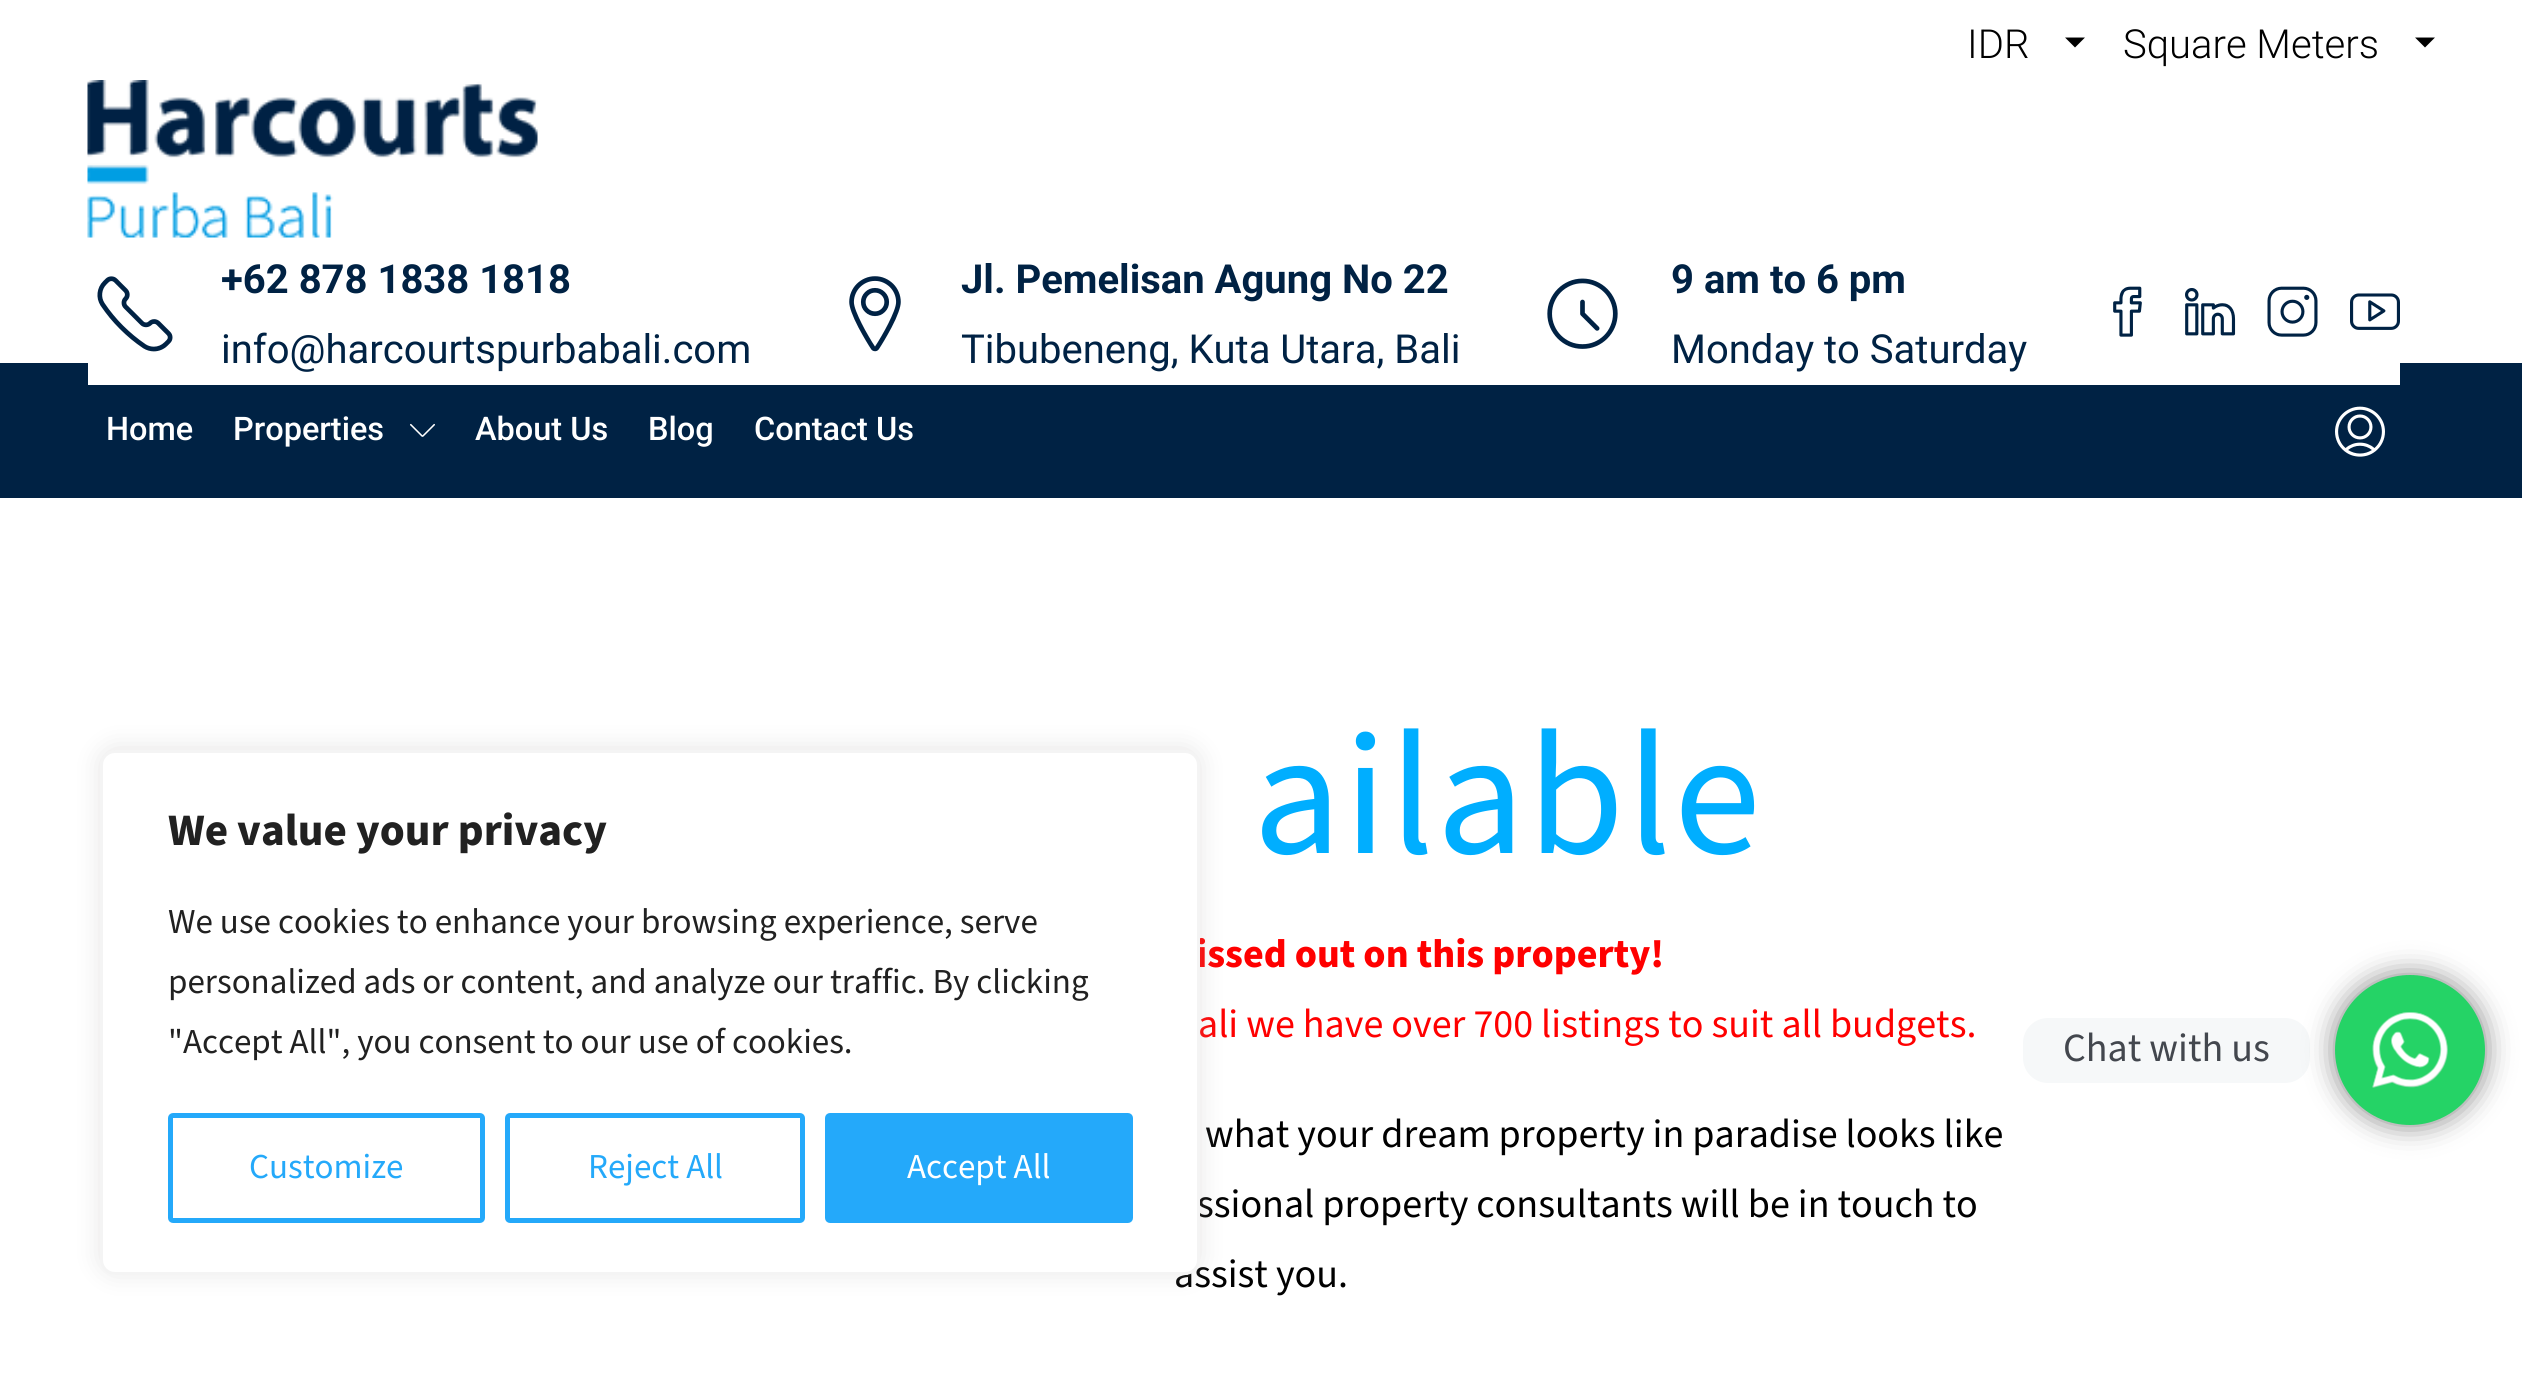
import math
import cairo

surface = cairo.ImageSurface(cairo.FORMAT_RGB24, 2522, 1374)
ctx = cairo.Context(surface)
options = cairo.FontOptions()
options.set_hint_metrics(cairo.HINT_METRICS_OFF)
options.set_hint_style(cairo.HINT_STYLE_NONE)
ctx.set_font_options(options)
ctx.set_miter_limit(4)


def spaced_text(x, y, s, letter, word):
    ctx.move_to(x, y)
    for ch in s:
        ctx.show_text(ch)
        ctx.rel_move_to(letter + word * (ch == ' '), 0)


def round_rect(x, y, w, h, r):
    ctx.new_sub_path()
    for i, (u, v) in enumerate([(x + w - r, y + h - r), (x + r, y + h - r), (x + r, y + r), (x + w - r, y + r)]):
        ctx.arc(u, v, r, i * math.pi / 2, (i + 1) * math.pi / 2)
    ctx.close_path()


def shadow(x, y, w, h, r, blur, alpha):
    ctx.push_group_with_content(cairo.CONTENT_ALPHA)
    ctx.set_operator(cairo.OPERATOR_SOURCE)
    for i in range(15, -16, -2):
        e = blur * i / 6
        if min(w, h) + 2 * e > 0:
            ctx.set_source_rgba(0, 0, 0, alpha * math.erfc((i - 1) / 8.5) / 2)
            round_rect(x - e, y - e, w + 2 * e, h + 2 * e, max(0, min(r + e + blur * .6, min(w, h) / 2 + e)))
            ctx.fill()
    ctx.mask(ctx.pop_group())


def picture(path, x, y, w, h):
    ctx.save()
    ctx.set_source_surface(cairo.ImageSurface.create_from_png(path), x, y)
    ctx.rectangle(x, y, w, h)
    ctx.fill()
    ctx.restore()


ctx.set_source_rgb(1, 1, 1)
ctx.paint()
ctx.select_font_face("Roboto Light")
ctx.set_font_size(40)
ctx.set_source_rgb(0, 0, 0)
ctx.move_to(1967, 58)
ctx.show_text("IDR")
ctx.new_path()
ctx.move_to(2065, 37.5)
ctx.line_to(2085, 37.5)
ctx.line_to(2075, 47.5)
ctx.close_path()
ctx.fill()
ctx.move_to(2123, 58)
ctx.show_text("Square Meters")
ctx.new_path()
ctx.move_to(2415, 37.5)
ctx.line_to(2435, 37.5)
ctx.line_to(2425, 47.5)
ctx.close_path()
ctx.fill()
picture("img1.png", 87, 80, 451, 158)
ctx.set_source_rgb(0, 0.133, 0.267)
ctx.rectangle(0, 363, 2522, 135)
ctx.fill()
ctx.set_source_rgb(1, 1, 1)
ctx.rectangle(88, 363, 2312, 22)
ctx.fill()
picture("img2.png", 97, 276, 76, 76)
ctx.select_font_face("Roboto", cairo.FONT_SLANT_NORMAL, cairo.FONT_WEIGHT_BOLD)
ctx.set_source_rgb(0, 0.133, 0.267)
ctx.move_to(221, 293)
ctx.show_text("+62 878 1838 1818")
ctx.select_font_face("Roboto")
ctx.move_to(221, 363)
ctx.show_text("info@harcourtspurbabali.com")
picture("img3.png", 849, 276, 52, 76)
ctx.select_font_face("Roboto", cairo.FONT_SLANT_NORMAL, cairo.FONT_WEIGHT_BOLD)
ctx.move_to(961, 293)
ctx.show_text("Jl. Pemelisan Agung No 22")
ctx.select_font_face("Roboto")
ctx.move_to(961, 363)
ctx.show_text("Tibubeneng, Kuta Utara, Bali")
picture("img4.png", 1547, 278, 71, 71)
ctx.select_font_face("Roboto", cairo.FONT_SLANT_NORMAL, cairo.FONT_WEIGHT_BOLD)
ctx.move_to(1671, 293)
ctx.show_text("9 am to 6 pm")
ctx.select_font_face("Roboto")
ctx.move_to(1671, 363)
ctx.show_text("Monday to Saturday")
picture("img5.png", 2113, 286, 29, 51)
picture("img6.png", 2185, 288, 51, 48)
picture("img7.png", 2267, 286, 51, 51)
picture("img8.png", 2350, 293, 50, 37)
ctx.select_font_face("Roboto Medium")
ctx.set_font_size(32.5)
ctx.set_source_rgb(1, 1, 1)
ctx.move_to(106, 440)
ctx.show_text("Home")
ctx.move_to(233, 440)
ctx.show_text("Properties")
picture("img9.png", 410, 423, 25, 14)
ctx.move_to(475, 440)
ctx.show_text("About Us")
ctx.move_to(648, 440)
ctx.show_text("Blog")
ctx.move_to(754, 440)
ctx.show_text("Contact Us")
picture("img10.png", 2335, 406, 50, 51)
ctx.select_font_face("Source Sans Pro")
ctx.set_font_size(175)
ctx.set_source_rgb(0, 0.682, 1)
spaced_text(1253, 853, "ailable", 2.5, 0)
ctx.select_font_face("Source Sans Pro", cairo.FONT_SLANT_NORMAL, cairo.FONT_WEIGHT_BOLD)
ctx.set_font_size(40)
ctx.set_source_rgb(1, 0, 0)
ctx.move_to(1196, 967)
ctx.show_text("issed out on this property!")
ctx.select_font_face("Source Sans Pro")
ctx.move_to(1198, 1037)
ctx.show_text("ali we have over 700 listings to suit all budgets.")
ctx.set_source_rgb(0, 0, 0)
ctx.move_to(1205, 1147)
ctx.show_text("what your dream property in paradise looks like")
ctx.move_to(1197, 1217)
ctx.show_text("ssional property consultants will be in touch to")
ctx.move_to(1174, 1287)
ctx.show_text("assist you.")
ctx.set_source_rgb(0.675, 0.671, 0.671)
shadow(100, 748, 1100, 525, 15, 12.5, 0.3)
ctx.set_source_rgb(1, 1, 1)
round_rect(101.5, 751.5, 1097, 522, 13.5)
ctx.fill_preserve()
ctx.set_source_rgb(0.957, 0.957, 0.957)
ctx.set_line_width(3)
ctx.stroke()
ctx.select_font_face("Source Sans Pro", cairo.FONT_SLANT_NORMAL, cairo.FONT_WEIGHT_BOLD)
ctx.set_font_size(45)
ctx.set_source_rgb(0.129, 0.129, 0.129)
ctx.move_to(168, 845)
ctx.show_text("We value your privacy")
ctx.select_font_face("Source Sans Pro")
ctx.set_font_size(35)
ctx.move_to(168, 933)
ctx.show_text("We use cookies to enhance your browsing experience, serve")
ctx.move_to(168, 993)
ctx.show_text("personalized ads or content, and analyze our traffic. By clicking")
ctx.move_to(168, 1053)
ctx.show_text("\"Accept All\", you consent to our use of cookies.")
round_rect(170.5, 1115.5, 312, 105, 2.5)
ctx.set_source_rgb(0.141, 0.663, 0.98)
ctx.set_line_width(5)
ctx.stroke()
ctx.move_to(249, 1178)
ctx.show_text("Customize")
round_rect(507.5, 1115.5, 295, 105, 2.5)
ctx.stroke()
ctx.move_to(588, 1178)
ctx.show_text("Reject All")
round_rect(827.5, 1115.5, 303, 105, 2.5)
ctx.fill_preserve()
ctx.stroke()
ctx.set_source_rgb(1, 1, 1)
ctx.move_to(907, 1178)
ctx.show_text("Accept All")
ctx.set_source_rgb(0.961, 0.969, 0.976)
round_rect(2023, 1018, 287, 65, 25)
ctx.fill()
ctx.set_font_size(40)
ctx.set_source_rgb(0.263, 0.278, 0.306)
ctx.move_to(2063, 1061)
ctx.show_text("Chat with us")
ctx.set_source_rgb(0, 0, 0)
shadow(2335, 975, 150, 150, 75, 14, 0.5)
ctx.set_source_rgb(0.145, 0.827, 0.4)
ctx.arc(2410, 1050, 75, 0, 2 * math.pi)
ctx.fill()
picture("img11.png", 2372, 1012, 76, 76)
surface.write_to_png("page.png")
